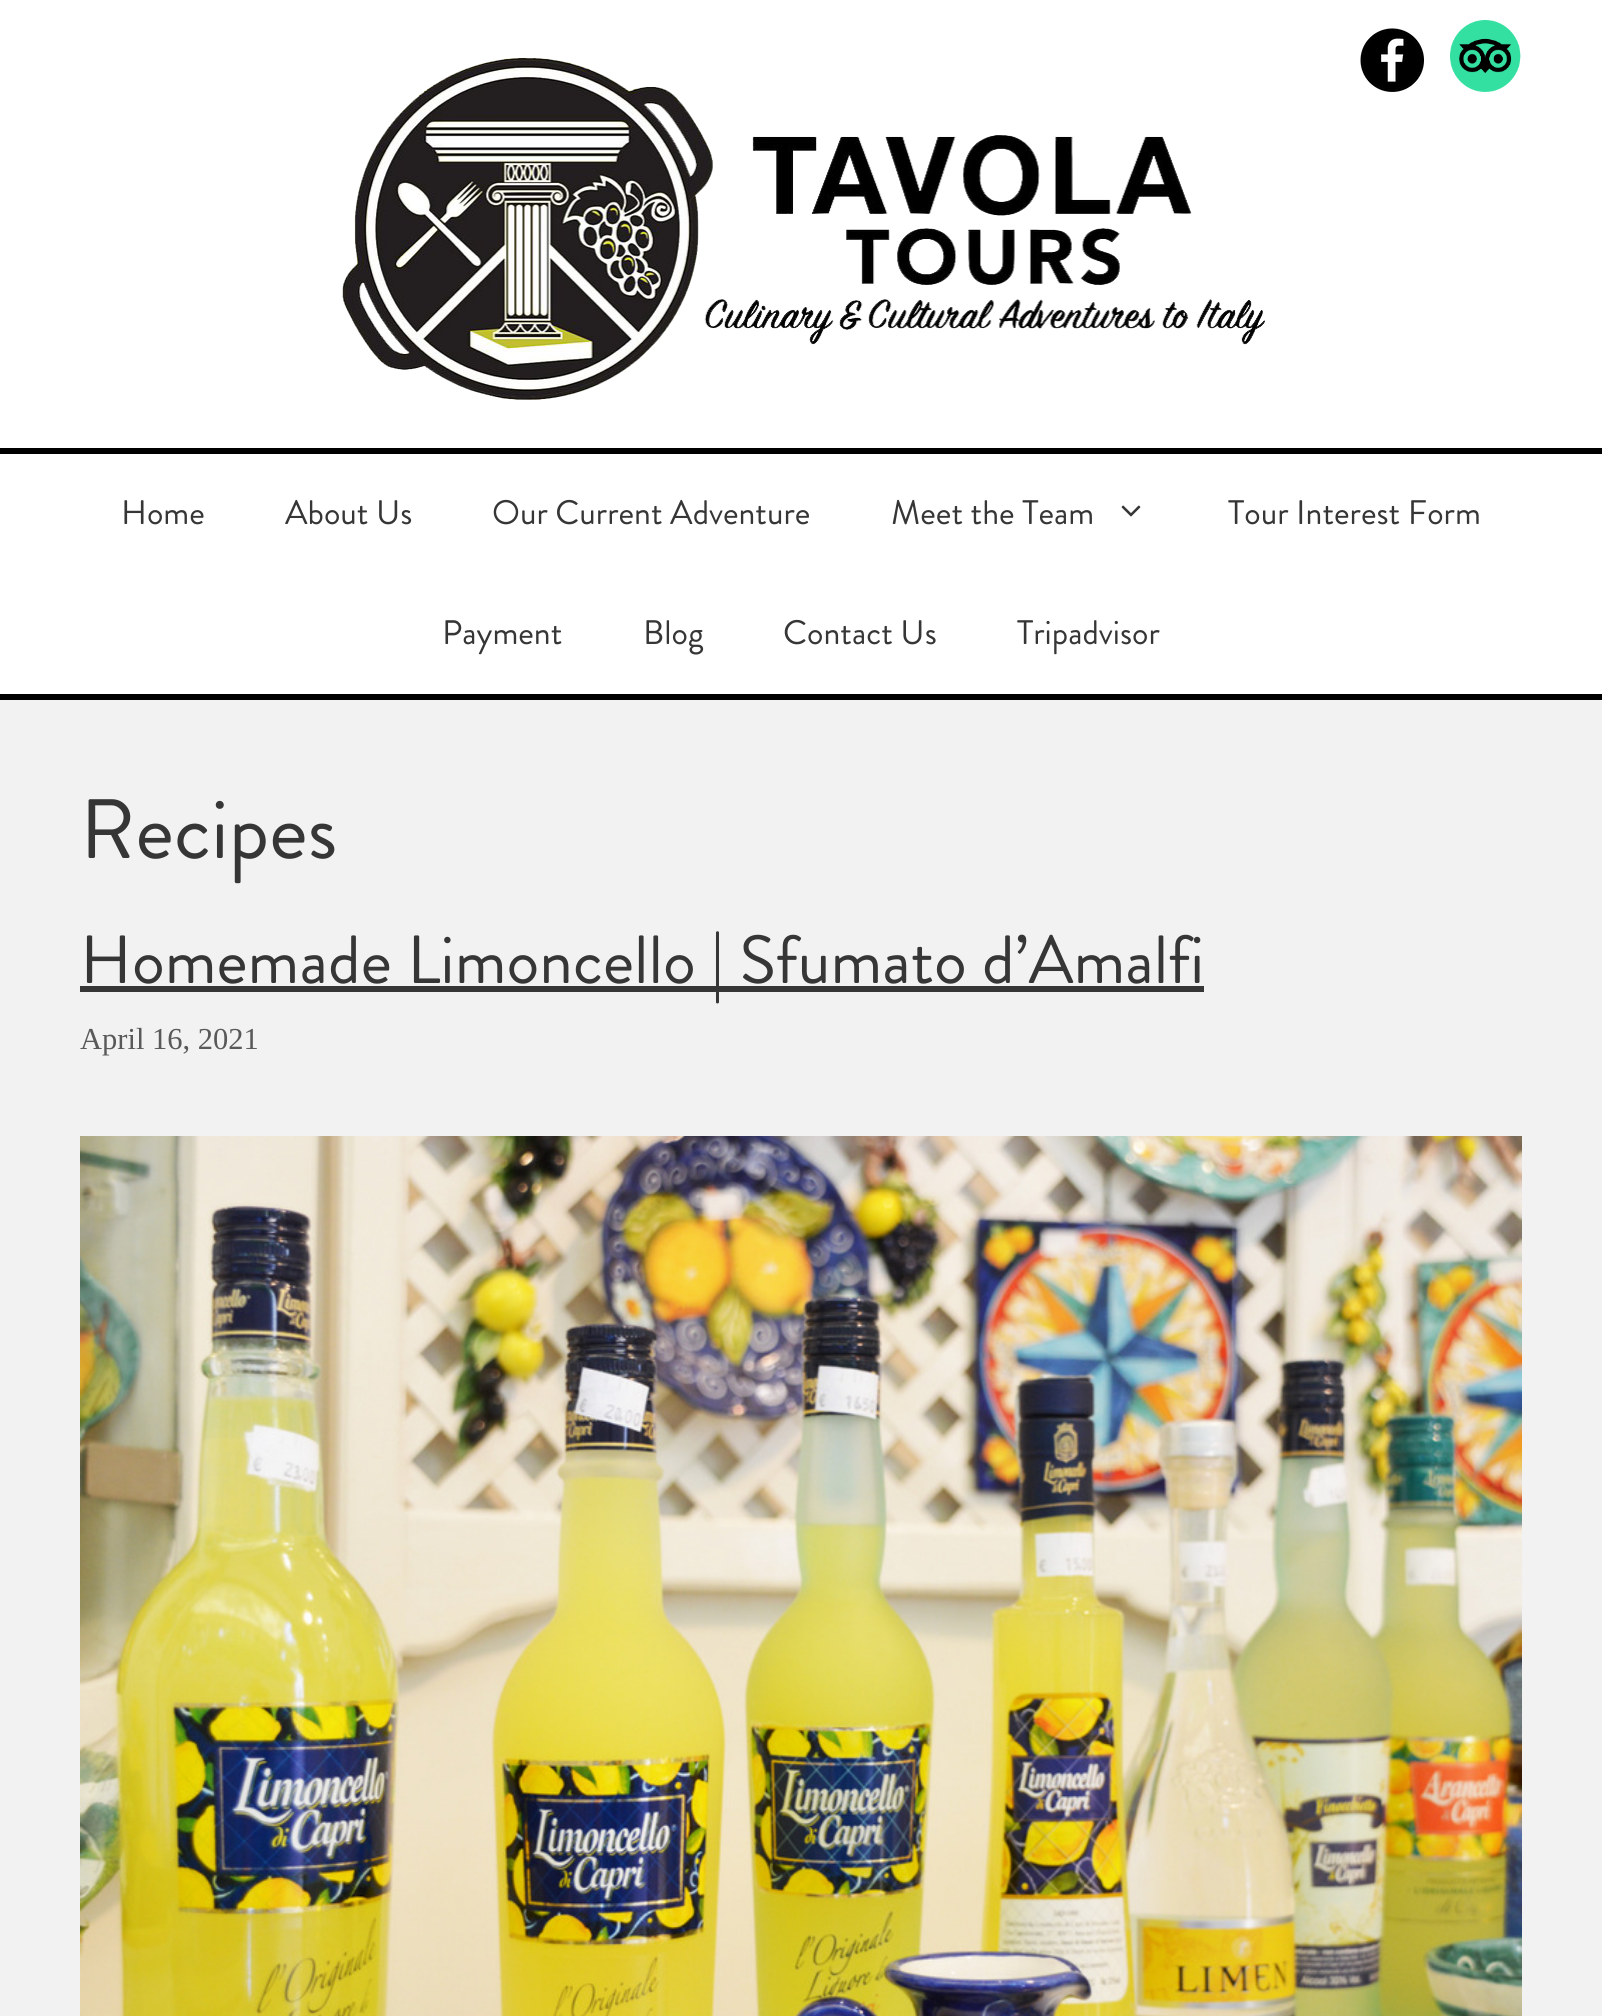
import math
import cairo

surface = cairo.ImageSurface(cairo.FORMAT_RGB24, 1602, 2016)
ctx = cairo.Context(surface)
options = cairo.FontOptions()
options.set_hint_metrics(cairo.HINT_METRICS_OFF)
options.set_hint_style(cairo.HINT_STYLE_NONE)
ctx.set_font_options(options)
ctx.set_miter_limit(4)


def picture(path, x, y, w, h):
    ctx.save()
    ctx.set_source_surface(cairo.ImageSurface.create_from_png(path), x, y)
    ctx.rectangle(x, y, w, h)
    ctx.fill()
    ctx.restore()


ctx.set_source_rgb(0.949, 0.949, 0.949)
ctx.paint()
ctx.set_source_rgb(1, 1, 1)
ctx.rectangle(0, 0, 1602, 448)
ctx.fill()
picture("img1.png", 1360, 28, 64, 64)
picture("img2.png", 1450, 20, 71, 72)
picture("img3.png", 342, 58, 923, 342)
ctx.rectangle(0, 454, 1602, 240)
ctx.fill()
ctx.set_source_rgb(0, 0, 0)
ctx.rectangle(0, 448, 1602, 6)
ctx.fill()
ctx.rectangle(0, 694, 1602, 6)
ctx.fill()
ctx.select_font_face("Brandon Grotesque")
ctx.set_font_size(34)
ctx.set_source_rgb(0.212, 0.212, 0.212)
ctx.move_to(121, 524)
ctx.show_text("Home")
ctx.move_to(285, 524)
ctx.show_text("About Us")
ctx.move_to(492, 524)
ctx.show_text("Our Current Adventure")
ctx.move_to(891, 524)
ctx.show_text("Meet the Team")
picture("img4.png", 1121, 505, 20, 12)
ctx.move_to(1228, 524)
ctx.show_text("Tour Interest Form")
ctx.move_to(442, 644)
ctx.show_text("Payment")
ctx.move_to(643, 644)
ctx.show_text("Blog")
ctx.move_to(783, 644)
ctx.show_text("Contact Us")
ctx.move_to(1017, 644)
ctx.show_text("Tripadvisor")
ctx.set_font_size(84)
ctx.move_to(80, 858)
ctx.show_text("Recipes")
ctx.rectangle(80, 986, 1124, 6)
ctx.fill()
ctx.set_font_size(68)
ctx.move_to(80, 983)
ctx.show_text("Homemade Limoncello | Sfumato d’Amalfi")
ctx.select_font_face("Liberation Serif")
ctx.set_font_size(30.5)
ctx.set_source_rgb(0.349, 0.349, 0.349)
ctx.move_to(80, 1049)
ctx.show_text("April 16, 2021")
picture("img5.png", 80, 1136, 1442, 880)
surface.write_to_png("page.png")
